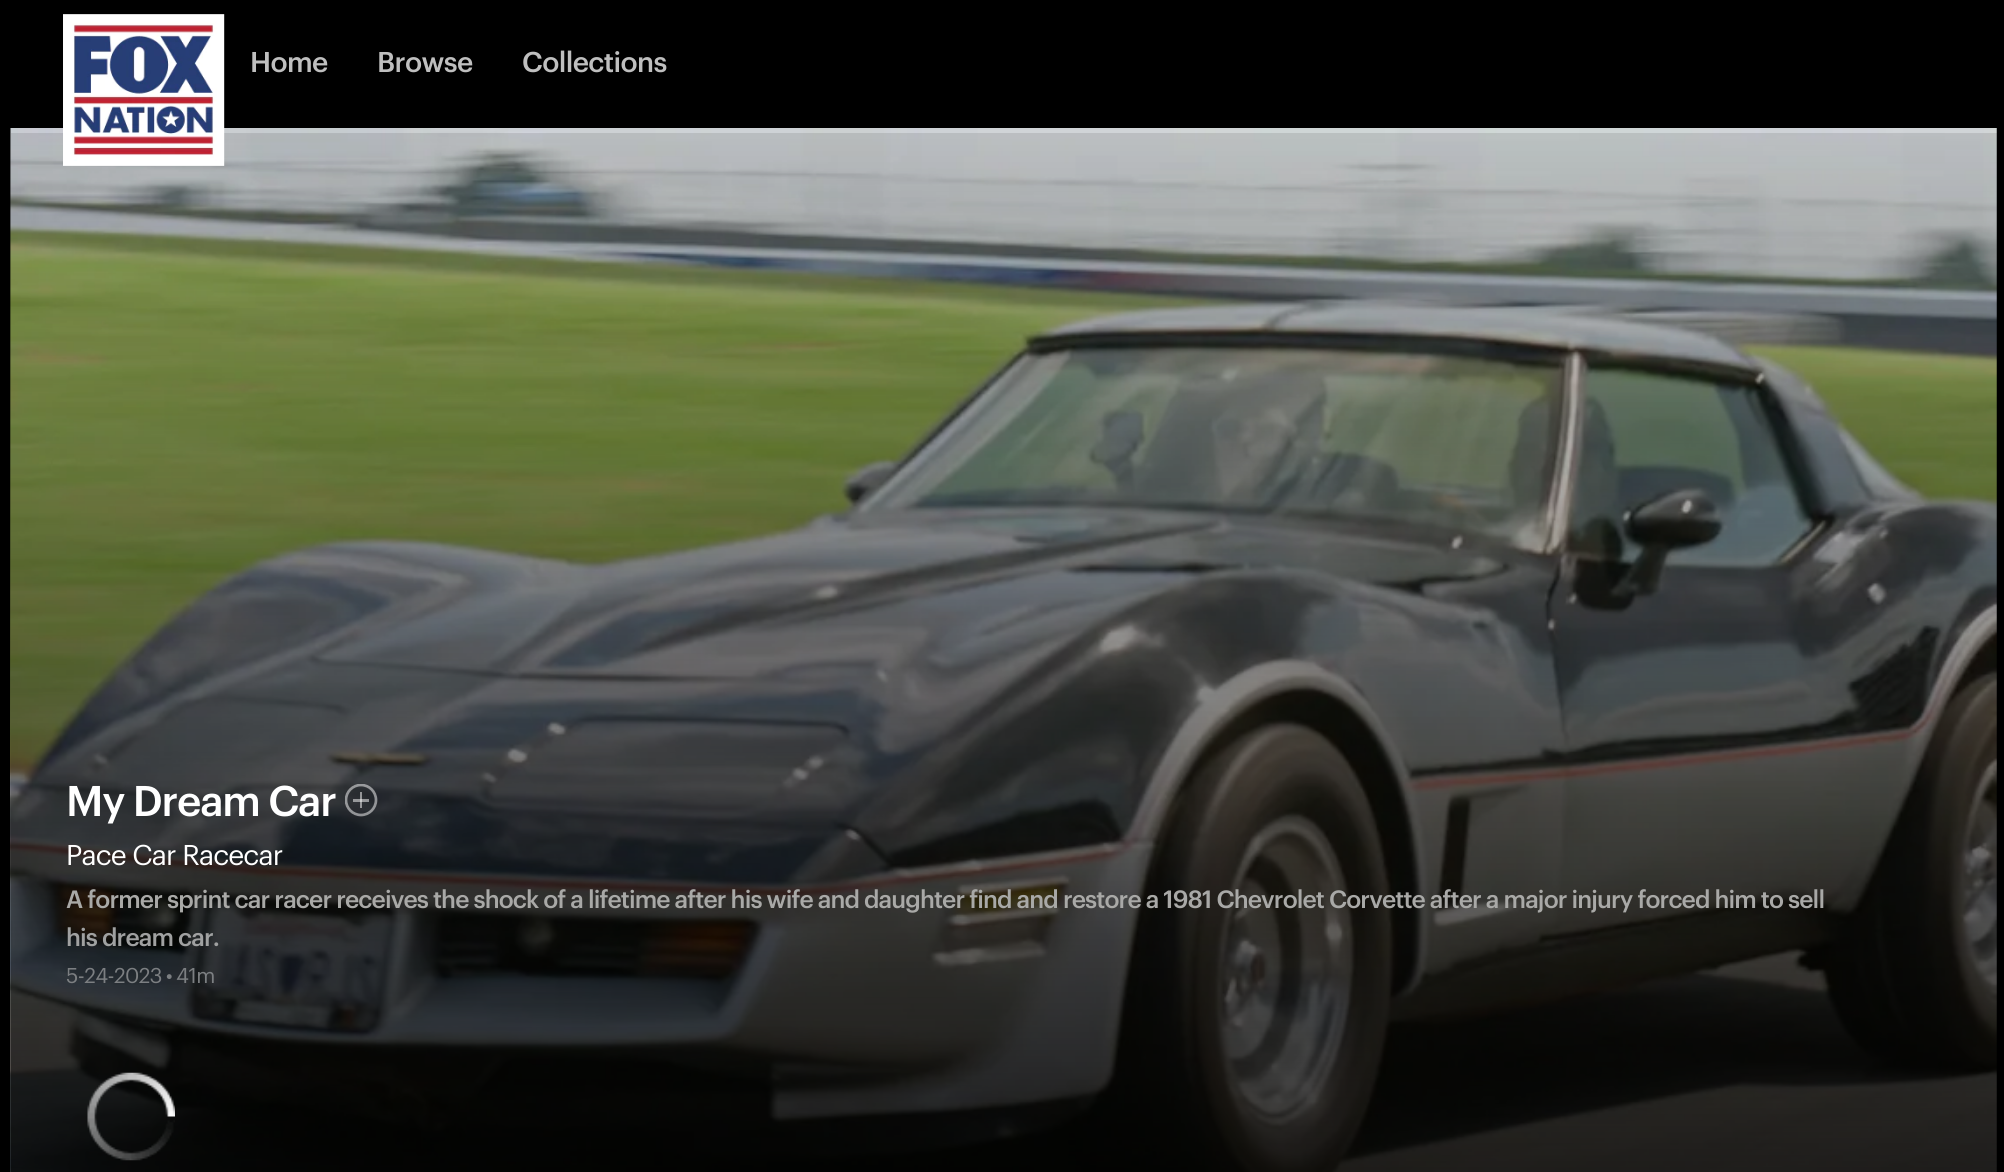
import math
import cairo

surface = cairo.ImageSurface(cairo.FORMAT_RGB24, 2004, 1172)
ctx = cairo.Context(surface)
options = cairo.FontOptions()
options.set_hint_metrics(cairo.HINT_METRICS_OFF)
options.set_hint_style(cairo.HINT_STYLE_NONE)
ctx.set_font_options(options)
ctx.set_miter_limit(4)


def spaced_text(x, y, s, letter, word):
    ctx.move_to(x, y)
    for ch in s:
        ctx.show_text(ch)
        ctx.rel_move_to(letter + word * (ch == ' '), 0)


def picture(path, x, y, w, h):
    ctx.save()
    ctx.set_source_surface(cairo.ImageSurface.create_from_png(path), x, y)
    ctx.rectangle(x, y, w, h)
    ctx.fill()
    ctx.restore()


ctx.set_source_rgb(0, 0, 0)
ctx.paint()
picture("img2.png", 10, 128, 1987, 1044)
gradient = cairo.LinearGradient(1004, 133, 1004, 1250)
gradient.add_color_stop_rgba(0, 0, 0, 0, 0.1)
gradient.add_color_stop_rgba(1, 0, 0, 0, 0.85)
ctx.set_source(gradient)
ctx.rectangle(11, 133, 1986, 1039)
ctx.fill()
picture("img1.png", 63, 14, 162, 152)
ctx.select_font_face("Graphik Medium")
ctx.set_font_size(28)
ctx.set_source_rgb(0.749, 0.749, 0.749)
spaced_text(250, 72, "Home", -0.6, 0)
spaced_text(377, 72, "Browse", -0.6, 0)
spaced_text(522, 72, "Collections", -0.6, 0)
picture("img3.png", 87, 1072, 88, 89)
ctx.set_font_size(42)
ctx.set_source_rgb(1, 1, 1)
spaced_text(66, 816, "My Dream Car", -1.25, 0)
ctx.save()
ctx.rectangle(345, 784, 35, 35)
ctx.clip()
ctx.arc(361, 800, 15, 0, 2 * math.pi)
ctx.set_source_rgba(1, 1, 1, 0.5)
ctx.set_line_width(2.7)
ctx.stroke()
ctx.restore()
ctx.set_source_rgba(1, 1, 1, 0.5)
ctx.rectangle(360, 792, 2, 16)
ctx.fill()
ctx.rectangle(353, 799, 16, 3)
ctx.fill()
ctx.select_font_face("Graphik")
ctx.set_font_size(28)
ctx.set_source_rgb(1, 1, 1)
spaced_text(66, 865, "Pace Car Racecar", -0.88, 0)
ctx.select_font_face("Graphik Medium")
ctx.set_font_size(24.5)
ctx.set_source_rgb(0.663, 0.663, 0.655)
spaced_text(66, 908, "A former sprint car racer receives the shock of a lifetime after his wife and daughter find and restore a 1981 Chevrolet Corvette after a major injury forced him to sell", -0.88, 0)
ctx.set_source_rgb(0.627, 0.631, 0.631)
spaced_text(66, 946, "his dream car.", -0.88, 0)
ctx.select_font_face("Graphik")
ctx.set_font_size(21)
ctx.set_source_rgb(0.486, 0.498, 0.51)
spaced_text(66, 983, "5-24-2023 • 41m", -0.6, -1)
surface.write_to_png("page.png")
